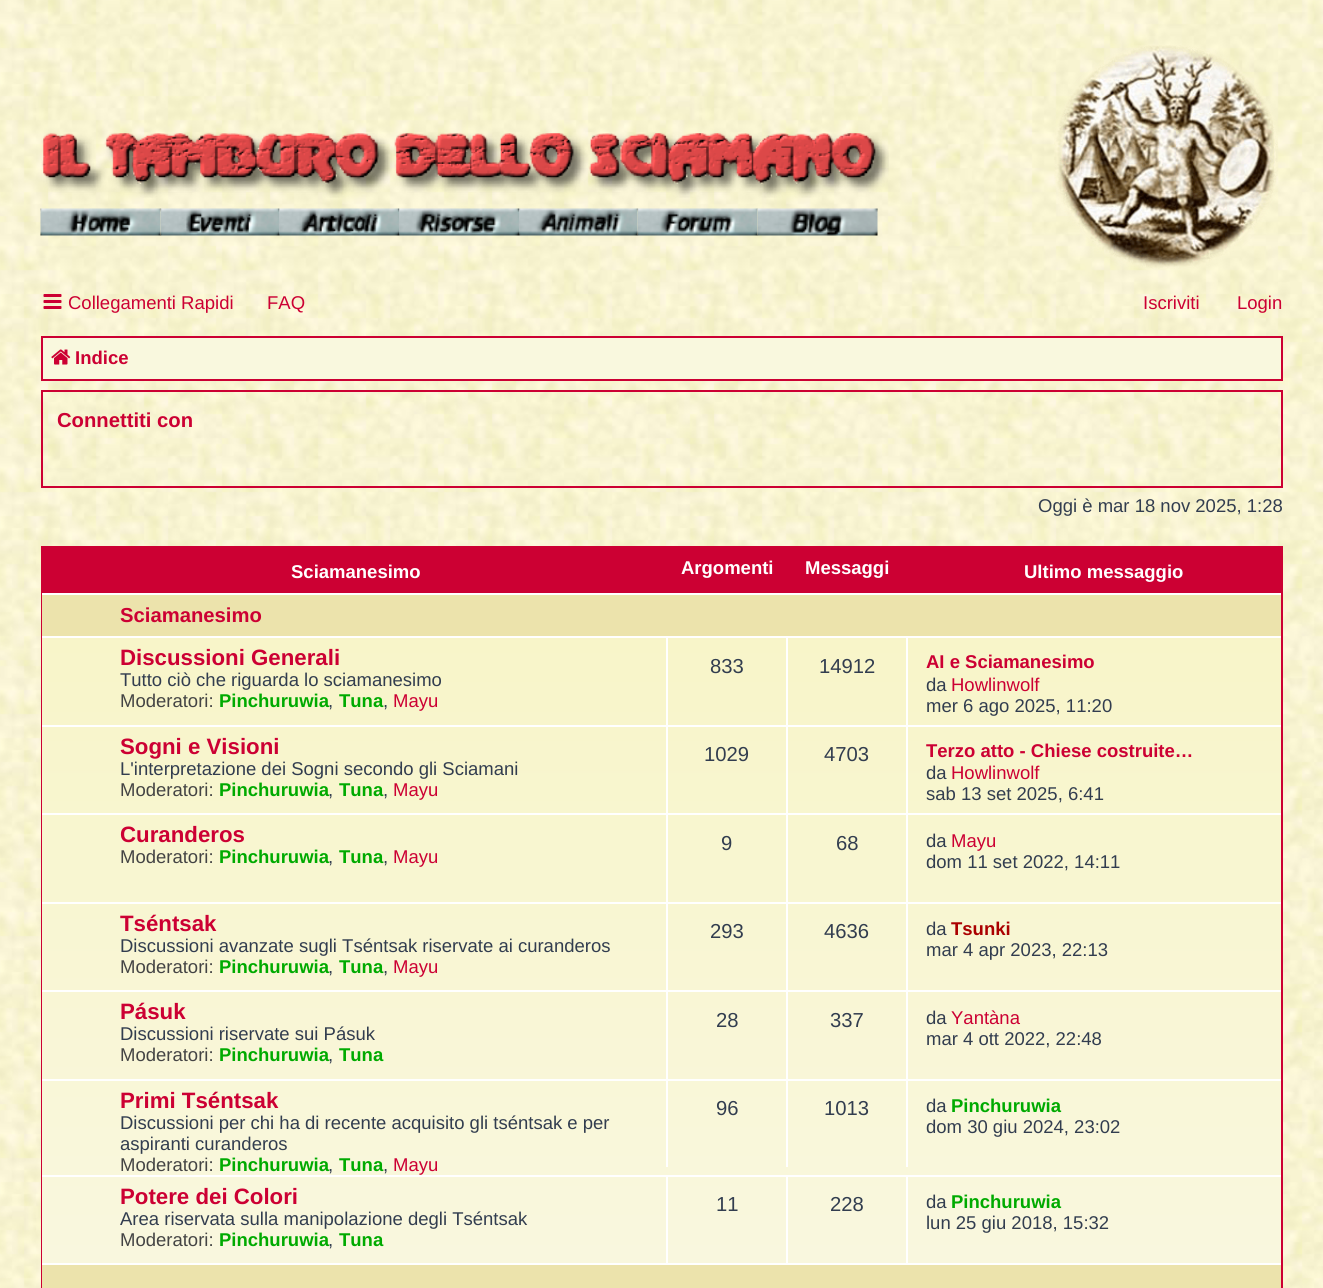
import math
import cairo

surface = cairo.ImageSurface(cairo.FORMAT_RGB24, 1323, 1288)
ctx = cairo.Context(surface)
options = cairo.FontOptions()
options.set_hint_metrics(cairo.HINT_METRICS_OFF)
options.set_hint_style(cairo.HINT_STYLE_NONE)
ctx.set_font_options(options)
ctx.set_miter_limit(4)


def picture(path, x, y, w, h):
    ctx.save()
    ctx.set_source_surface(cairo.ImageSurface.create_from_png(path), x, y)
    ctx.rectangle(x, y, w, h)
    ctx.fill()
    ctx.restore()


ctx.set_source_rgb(1, 1, 1)
ctx.paint()
picture("img1.png", 0, 0, 1323, 1288)
picture("img2.png", 41, 133, 848, 65)
picture("img3.png", 40, 208, 121, 28)
picture("img4.png", 160, 208, 119, 28)
picture("img5.png", 279, 208, 120, 28)
picture("img6.png", 399, 208, 120, 28)
picture("img8.png", 637, 208, 121, 28)
picture("img7.png", 519, 208, 119, 28)
picture("img9.png", 757, 208, 121, 28)
picture("img10.png", 1054, 45, 224, 224)
picture("img11.png", 43, 294, 19, 15)
ctx.select_font_face("Liberation Sans")
ctx.set_font_size(18.5)
ctx.set_source_rgb(0.8, 0, 0.2)
ctx.move_to(68, 309)
ctx.show_text("Collegamenti Rapidi")
ctx.move_to(267, 309)
ctx.show_text("FAQ")
ctx.move_to(1143, 309)
ctx.show_text("Iscriviti")
ctx.move_to(1237, 309)
ctx.show_text("Login")
ctx.set_source_rgb(0.976, 0.969, 0.871)
ctx.rectangle(42, 337, 1240, 43)
ctx.fill_preserve()
ctx.set_source_rgb(0.8, 0, 0.2)
ctx.stroke()
picture("img12.png", 51, 349, 20, 16)
ctx.select_font_face("Liberation Sans", cairo.FONT_SLANT_NORMAL, cairo.FONT_WEIGHT_BOLD)
ctx.move_to(75, 364)
ctx.show_text("Indice")
ctx.rectangle(42, 391, 1240, 96)
ctx.stroke()
ctx.set_font_size(20.25)
ctx.move_to(57, 427)
ctx.show_text("Connettiti con")
ctx.select_font_face("Liberation Sans")
ctx.set_font_size(18.5)
ctx.set_source_rgb(0.196, 0.239, 0.31)
ctx.move_to(1038, 512)
ctx.show_text("Oggi è mar 18 nov 2025, 1:28")
ctx.set_source_rgb(0.8, 0, 0.2)
ctx.rectangle(41, 546, 1242, 742)
ctx.fill()
ctx.select_font_face("Liberation Sans", cairo.FONT_SLANT_NORMAL, cairo.FONT_WEIGHT_BOLD)
ctx.set_source_rgb(1, 1, 1)
ctx.move_to(291, 578)
ctx.show_text("Sciamanesimo")
ctx.move_to(681, 574)
ctx.show_text("Argomenti")
ctx.move_to(805, 574)
ctx.show_text("Messaggi")
ctx.move_to(1024, 578)
ctx.show_text("Ultimo messaggio")
ctx.set_source_rgb(0.922, 0.89, 0.675)
ctx.rectangle(42, 595, 1239, 41)
ctx.fill()
ctx.set_source_rgb(1, 1, 1)
ctx.rectangle(42, 593, 1239, 2)
ctx.fill()
ctx.set_font_size(20.25)
ctx.set_source_rgb(0.8, 0, 0.2)
ctx.move_to(120, 622)
ctx.show_text("Sciamanesimo")
gradient = cairo.LinearGradient(662, 636, 662, 1263)
gradient.add_color_stop_rgba(0, 0.973, 0.961, 0.788, 1)
gradient.add_color_stop_rgba(1, 0.976, 0.969, 0.871, 1)
ctx.set_source(gradient)
ctx.rectangle(42, 638, 1239, 625)
ctx.fill()
ctx.set_source_rgb(1, 1, 1)
ctx.rectangle(42, 636, 1239, 2)
ctx.fill()
ctx.set_font_size(22.25)
ctx.set_source_rgb(0.8, 0, 0.2)
ctx.move_to(120, 665)
ctx.show_text("Discussioni Generali")
ctx.select_font_face("Liberation Sans")
ctx.set_font_size(18.5)
ctx.set_source_rgb(0.196, 0.239, 0.31)
ctx.move_to(120, 686)
ctx.show_text("Tutto ciò che riguarda lo sciamanesimo")
ctx.set_source_rgb(0.267, 0.267, 0.267)
ctx.move_to(120, 707)
ctx.show_text("Moderatori:")
ctx.select_font_face("Liberation Sans", cairo.FONT_SLANT_NORMAL, cairo.FONT_WEIGHT_BOLD)
ctx.set_source_rgb(0, 0.667, 0)
ctx.move_to(219, 707)
ctx.show_text("Pinchuruwia")
ctx.select_font_face("Liberation Sans")
ctx.set_source_rgb(0.196, 0.239, 0.31)
ctx.move_to(328, 707)
ctx.show_text(",")
ctx.select_font_face("Liberation Sans", cairo.FONT_SLANT_NORMAL, cairo.FONT_WEIGHT_BOLD)
ctx.set_source_rgb(0, 0.667, 0)
ctx.move_to(339, 707)
ctx.show_text("Tuna")
ctx.select_font_face("Liberation Sans")
ctx.set_source_rgb(0.196, 0.239, 0.31)
ctx.move_to(383, 707)
ctx.show_text(",")
ctx.set_source_rgb(0.8, 0, 0.2)
ctx.move_to(393, 707)
ctx.show_text("Mayu")
ctx.set_source_rgb(1, 1, 1)
ctx.rectangle(666, 638, 2, 87)
ctx.fill()
ctx.set_font_size(20.25)
ctx.set_source_rgb(0.196, 0.239, 0.31)
ctx.move_to(710, 673)
ctx.show_text("833")
ctx.set_source_rgb(1, 1, 1)
ctx.rectangle(786, 638, 2, 87)
ctx.fill()
ctx.set_source_rgb(0.196, 0.239, 0.31)
ctx.move_to(819, 673)
ctx.show_text("14912")
ctx.set_source_rgb(1, 1, 1)
ctx.rectangle(906, 638, 2, 87)
ctx.fill()
ctx.select_font_face("Liberation Sans", cairo.FONT_SLANT_NORMAL, cairo.FONT_WEIGHT_BOLD)
ctx.set_font_size(18.5)
ctx.set_source_rgb(0.8, 0, 0.2)
ctx.move_to(926, 668)
ctx.show_text("AI e Sciamanesimo")
ctx.select_font_face("Liberation Sans")
ctx.set_source_rgb(0.196, 0.239, 0.31)
ctx.move_to(926, 691)
ctx.show_text("da")
ctx.set_source_rgb(0.8, 0, 0.2)
ctx.move_to(951, 691)
ctx.show_text("Howlinwolf")
ctx.set_source_rgb(0.196, 0.239, 0.31)
ctx.move_to(926, 712)
ctx.show_text("mer 6 ago 2025, 11:20")
ctx.set_source_rgb(1, 1, 1)
ctx.rectangle(42, 725, 1239, 2)
ctx.fill()
ctx.select_font_face("Liberation Sans", cairo.FONT_SLANT_NORMAL, cairo.FONT_WEIGHT_BOLD)
ctx.set_font_size(22.25)
ctx.set_source_rgb(0.8, 0, 0.2)
ctx.move_to(120, 754)
ctx.show_text("Sogni e Visioni")
ctx.select_font_face("Liberation Sans")
ctx.set_font_size(18.5)
ctx.set_source_rgb(0.196, 0.239, 0.31)
ctx.move_to(120, 775)
ctx.show_text("L'interpretazione dei Sogni secondo gli Sciamani")
ctx.set_source_rgb(0.267, 0.267, 0.267)
ctx.move_to(120, 796)
ctx.show_text("Moderatori:")
ctx.select_font_face("Liberation Sans", cairo.FONT_SLANT_NORMAL, cairo.FONT_WEIGHT_BOLD)
ctx.set_source_rgb(0, 0.667, 0)
ctx.move_to(219, 796)
ctx.show_text("Pinchuruwia")
ctx.select_font_face("Liberation Sans")
ctx.set_source_rgb(0.196, 0.239, 0.31)
ctx.move_to(328, 796)
ctx.show_text(",")
ctx.select_font_face("Liberation Sans", cairo.FONT_SLANT_NORMAL, cairo.FONT_WEIGHT_BOLD)
ctx.set_source_rgb(0, 0.667, 0)
ctx.move_to(339, 796)
ctx.show_text("Tuna")
ctx.select_font_face("Liberation Sans")
ctx.set_source_rgb(0.196, 0.239, 0.31)
ctx.move_to(383, 796)
ctx.show_text(",")
ctx.set_source_rgb(0.8, 0, 0.2)
ctx.move_to(393, 796)
ctx.show_text("Mayu")
ctx.set_source_rgb(1, 1, 1)
ctx.rectangle(666, 726, 2, 87)
ctx.fill()
ctx.set_font_size(20.25)
ctx.set_source_rgb(0.196, 0.239, 0.31)
ctx.move_to(704, 761)
ctx.show_text("1029")
ctx.set_source_rgb(1, 1, 1)
ctx.rectangle(786, 726, 2, 87)
ctx.fill()
ctx.set_source_rgb(0.196, 0.239, 0.31)
ctx.move_to(824, 761)
ctx.show_text("4703")
ctx.set_source_rgb(1, 1, 1)
ctx.rectangle(906, 726, 2, 87)
ctx.fill()
ctx.select_font_face("Liberation Sans", cairo.FONT_SLANT_NORMAL, cairo.FONT_WEIGHT_BOLD)
ctx.set_font_size(18.5)
ctx.set_source_rgb(0.8, 0, 0.2)
ctx.move_to(926, 757)
ctx.show_text("Terzo atto - Chiese costruite…")
ctx.select_font_face("Liberation Sans")
ctx.set_source_rgb(0.196, 0.239, 0.31)
ctx.move_to(926, 779)
ctx.show_text("da")
ctx.set_source_rgb(0.8, 0, 0.2)
ctx.move_to(951, 779)
ctx.show_text("Howlinwolf")
ctx.set_source_rgb(0.196, 0.239, 0.31)
ctx.move_to(926, 800)
ctx.show_text("sab 13 set 2025, 6:41")
ctx.set_source_rgb(1, 1, 1)
ctx.rectangle(42, 813, 1239, 2)
ctx.fill()
ctx.select_font_face("Liberation Sans", cairo.FONT_SLANT_NORMAL, cairo.FONT_WEIGHT_BOLD)
ctx.set_font_size(22.25)
ctx.set_source_rgb(0.8, 0, 0.2)
ctx.move_to(120, 842)
ctx.show_text("Curanderos")
ctx.select_font_face("Liberation Sans")
ctx.set_font_size(18.5)
ctx.set_source_rgb(0.267, 0.267, 0.267)
ctx.move_to(120, 863)
ctx.show_text("Moderatori:")
ctx.select_font_face("Liberation Sans", cairo.FONT_SLANT_NORMAL, cairo.FONT_WEIGHT_BOLD)
ctx.set_source_rgb(0, 0.667, 0)
ctx.move_to(219, 863)
ctx.show_text("Pinchuruwia")
ctx.select_font_face("Liberation Sans")
ctx.set_source_rgb(0.196, 0.239, 0.31)
ctx.move_to(328, 863)
ctx.show_text(",")
ctx.select_font_face("Liberation Sans", cairo.FONT_SLANT_NORMAL, cairo.FONT_WEIGHT_BOLD)
ctx.set_source_rgb(0, 0.667, 0)
ctx.move_to(339, 863)
ctx.show_text("Tuna")
ctx.select_font_face("Liberation Sans")
ctx.set_source_rgb(0.196, 0.239, 0.31)
ctx.move_to(383, 863)
ctx.show_text(",")
ctx.set_source_rgb(0.8, 0, 0.2)
ctx.move_to(393, 863)
ctx.show_text("Mayu")
ctx.set_source_rgb(1, 1, 1)
ctx.rectangle(666, 815, 2, 87)
ctx.fill()
ctx.set_font_size(20.25)
ctx.set_source_rgb(0.196, 0.239, 0.31)
ctx.move_to(721, 850)
ctx.show_text("9")
ctx.set_source_rgb(1, 1, 1)
ctx.rectangle(786, 815, 2, 87)
ctx.fill()
ctx.set_source_rgb(0.196, 0.239, 0.31)
ctx.move_to(836, 850)
ctx.show_text("68")
ctx.set_source_rgb(1, 1, 1)
ctx.rectangle(906, 815, 2, 87)
ctx.fill()
ctx.set_font_size(18.5)
ctx.set_source_rgb(0.196, 0.239, 0.31)
ctx.move_to(926, 847)
ctx.show_text("da")
ctx.set_source_rgb(0.8, 0, 0.2)
ctx.move_to(951, 847)
ctx.show_text("Mayu")
ctx.set_source_rgb(0.196, 0.239, 0.31)
ctx.move_to(926, 868)
ctx.show_text("dom 11 set 2022, 14:11")
ctx.set_source_rgb(1, 1, 1)
ctx.rectangle(42, 902, 1239, 2)
ctx.fill()
ctx.select_font_face("Liberation Sans", cairo.FONT_SLANT_NORMAL, cairo.FONT_WEIGHT_BOLD)
ctx.set_font_size(22.25)
ctx.set_source_rgb(0.8, 0, 0.2)
ctx.move_to(120, 931)
ctx.show_text("Tséntsak")
ctx.select_font_face("Liberation Sans")
ctx.set_font_size(18.5)
ctx.set_source_rgb(0.196, 0.239, 0.31)
ctx.move_to(120, 952)
ctx.show_text("Discussioni avanzate sugli Tséntsak riservate ai curanderos")
ctx.set_source_rgb(0.267, 0.267, 0.267)
ctx.move_to(120, 973)
ctx.show_text("Moderatori:")
ctx.select_font_face("Liberation Sans", cairo.FONT_SLANT_NORMAL, cairo.FONT_WEIGHT_BOLD)
ctx.set_source_rgb(0, 0.667, 0)
ctx.move_to(219, 973)
ctx.show_text("Pinchuruwia")
ctx.select_font_face("Liberation Sans")
ctx.set_source_rgb(0.196, 0.239, 0.31)
ctx.move_to(328, 973)
ctx.show_text(",")
ctx.select_font_face("Liberation Sans", cairo.FONT_SLANT_NORMAL, cairo.FONT_WEIGHT_BOLD)
ctx.set_source_rgb(0, 0.667, 0)
ctx.move_to(339, 973)
ctx.show_text("Tuna")
ctx.select_font_face("Liberation Sans")
ctx.set_source_rgb(0.196, 0.239, 0.31)
ctx.move_to(383, 973)
ctx.show_text(",")
ctx.set_source_rgb(0.8, 0, 0.2)
ctx.move_to(393, 973)
ctx.show_text("Mayu")
ctx.set_source_rgb(1, 1, 1)
ctx.rectangle(666, 903, 2, 87)
ctx.fill()
ctx.set_font_size(20.25)
ctx.set_source_rgb(0.196, 0.239, 0.31)
ctx.move_to(710, 938)
ctx.show_text("293")
ctx.set_source_rgb(1, 1, 1)
ctx.rectangle(786, 903, 2, 87)
ctx.fill()
ctx.set_source_rgb(0.196, 0.239, 0.31)
ctx.move_to(824, 938)
ctx.show_text("4636")
ctx.set_source_rgb(1, 1, 1)
ctx.rectangle(906, 903, 2, 87)
ctx.fill()
ctx.set_font_size(18.5)
ctx.set_source_rgb(0.196, 0.239, 0.31)
ctx.move_to(926, 935)
ctx.show_text("da")
ctx.select_font_face("Liberation Sans", cairo.FONT_SLANT_NORMAL, cairo.FONT_WEIGHT_BOLD)
ctx.set_source_rgb(0.667, 0, 0)
ctx.move_to(951, 935)
ctx.show_text("Tsunki")
ctx.select_font_face("Liberation Sans")
ctx.set_source_rgb(0.196, 0.239, 0.31)
ctx.move_to(926, 956)
ctx.show_text("mar 4 apr 2023, 22:13")
ctx.set_source_rgb(1, 1, 1)
ctx.rectangle(42, 990, 1239, 2)
ctx.fill()
ctx.select_font_face("Liberation Sans", cairo.FONT_SLANT_NORMAL, cairo.FONT_WEIGHT_BOLD)
ctx.set_font_size(22.25)
ctx.set_source_rgb(0.8, 0, 0.2)
ctx.move_to(120, 1019)
ctx.show_text("Pásuk")
ctx.select_font_face("Liberation Sans")
ctx.set_font_size(18.5)
ctx.set_source_rgb(0.196, 0.239, 0.31)
ctx.move_to(120, 1040)
ctx.show_text("Discussioni riservate sui Pásuk")
ctx.set_source_rgb(0.267, 0.267, 0.267)
ctx.move_to(120, 1061)
ctx.show_text("Moderatori:")
ctx.select_font_face("Liberation Sans", cairo.FONT_SLANT_NORMAL, cairo.FONT_WEIGHT_BOLD)
ctx.set_source_rgb(0, 0.667, 0)
ctx.move_to(219, 1061)
ctx.show_text("Pinchuruwia")
ctx.select_font_face("Liberation Sans")
ctx.set_source_rgb(0.196, 0.239, 0.31)
ctx.move_to(328, 1061)
ctx.show_text(",")
ctx.select_font_face("Liberation Sans", cairo.FONT_SLANT_NORMAL, cairo.FONT_WEIGHT_BOLD)
ctx.set_source_rgb(0, 0.667, 0)
ctx.move_to(339, 1061)
ctx.show_text("Tuna")
ctx.set_source_rgb(1, 1, 1)
ctx.rectangle(666, 992, 2, 87)
ctx.fill()
ctx.select_font_face("Liberation Sans")
ctx.set_font_size(20.25)
ctx.set_source_rgb(0.196, 0.239, 0.31)
ctx.move_to(716, 1027)
ctx.show_text("28")
ctx.set_source_rgb(1, 1, 1)
ctx.rectangle(786, 992, 2, 87)
ctx.fill()
ctx.set_source_rgb(0.196, 0.239, 0.31)
ctx.move_to(830, 1027)
ctx.show_text("337")
ctx.set_source_rgb(1, 1, 1)
ctx.rectangle(906, 992, 2, 87)
ctx.fill()
ctx.set_font_size(18.5)
ctx.set_source_rgb(0.196, 0.239, 0.31)
ctx.move_to(926, 1024)
ctx.show_text("da")
ctx.set_source_rgb(0.8, 0, 0.2)
ctx.move_to(951, 1024)
ctx.show_text("Yantàna")
ctx.set_source_rgb(0.196, 0.239, 0.31)
ctx.move_to(926, 1045)
ctx.show_text("mar 4 ott 2022, 22:48")
ctx.set_source_rgb(1, 1, 1)
ctx.rectangle(42, 1079, 1239, 2)
ctx.fill()
ctx.select_font_face("Liberation Sans", cairo.FONT_SLANT_NORMAL, cairo.FONT_WEIGHT_BOLD)
ctx.set_font_size(22.25)
ctx.set_source_rgb(0.8, 0, 0.2)
ctx.move_to(120, 1108)
ctx.show_text("Primi Tséntsak")
ctx.select_font_face("Liberation Sans")
ctx.set_font_size(18.5)
ctx.set_source_rgb(0.196, 0.239, 0.31)
ctx.move_to(120, 1129)
ctx.show_text("Discussioni per chi ha di recente acquisito gli tséntsak e per")
ctx.move_to(120, 1150)
ctx.show_text("aspiranti curanderos")
ctx.set_source_rgb(0.267, 0.267, 0.267)
ctx.move_to(120, 1171)
ctx.show_text("Moderatori:")
ctx.select_font_face("Liberation Sans", cairo.FONT_SLANT_NORMAL, cairo.FONT_WEIGHT_BOLD)
ctx.set_source_rgb(0, 0.667, 0)
ctx.move_to(219, 1171)
ctx.show_text("Pinchuruwia")
ctx.select_font_face("Liberation Sans")
ctx.set_source_rgb(0.196, 0.239, 0.31)
ctx.move_to(328, 1171)
ctx.show_text(",")
ctx.select_font_face("Liberation Sans", cairo.FONT_SLANT_NORMAL, cairo.FONT_WEIGHT_BOLD)
ctx.set_source_rgb(0, 0.667, 0)
ctx.move_to(339, 1171)
ctx.show_text("Tuna")
ctx.select_font_face("Liberation Sans")
ctx.set_source_rgb(0.196, 0.239, 0.31)
ctx.move_to(383, 1171)
ctx.show_text(",")
ctx.set_source_rgb(0.8, 0, 0.2)
ctx.move_to(393, 1171)
ctx.show_text("Mayu")
ctx.set_source_rgb(1, 1, 1)
ctx.rectangle(666, 1080, 2, 87)
ctx.fill()
ctx.set_font_size(20.25)
ctx.set_source_rgb(0.196, 0.239, 0.31)
ctx.move_to(716, 1115)
ctx.show_text("96")
ctx.set_source_rgb(1, 1, 1)
ctx.rectangle(786, 1080, 2, 87)
ctx.fill()
ctx.set_source_rgb(0.196, 0.239, 0.31)
ctx.move_to(824, 1115)
ctx.show_text("1013")
ctx.set_source_rgb(1, 1, 1)
ctx.rectangle(906, 1080, 2, 87)
ctx.fill()
ctx.set_font_size(18.5)
ctx.set_source_rgb(0.196, 0.239, 0.31)
ctx.move_to(926, 1112)
ctx.show_text("da")
ctx.select_font_face("Liberation Sans", cairo.FONT_SLANT_NORMAL, cairo.FONT_WEIGHT_BOLD)
ctx.set_source_rgb(0, 0.667, 0)
ctx.move_to(951, 1112)
ctx.show_text("Pinchuruwia")
ctx.select_font_face("Liberation Sans")
ctx.set_source_rgb(0.196, 0.239, 0.31)
ctx.move_to(926, 1133)
ctx.show_text("dom 30 giu 2024, 23:02")
ctx.set_source_rgb(1, 1, 1)
ctx.rectangle(42, 1175, 1239, 2)
ctx.fill()
ctx.select_font_face("Liberation Sans", cairo.FONT_SLANT_NORMAL, cairo.FONT_WEIGHT_BOLD)
ctx.set_font_size(22.25)
ctx.set_source_rgb(0.8, 0, 0.2)
ctx.move_to(120, 1204)
ctx.show_text("Potere dei Colori")
ctx.select_font_face("Liberation Sans")
ctx.set_font_size(18.5)
ctx.set_source_rgb(0.196, 0.239, 0.31)
ctx.move_to(120, 1225)
ctx.show_text("Area riservata sulla manipolazione degli Tséntsak")
ctx.set_source_rgb(0.267, 0.267, 0.267)
ctx.move_to(120, 1246)
ctx.show_text("Moderatori:")
ctx.select_font_face("Liberation Sans", cairo.FONT_SLANT_NORMAL, cairo.FONT_WEIGHT_BOLD)
ctx.set_source_rgb(0, 0.667, 0)
ctx.move_to(219, 1246)
ctx.show_text("Pinchuruwia")
ctx.select_font_face("Liberation Sans")
ctx.set_source_rgb(0.196, 0.239, 0.31)
ctx.move_to(328, 1246)
ctx.show_text(",")
ctx.select_font_face("Liberation Sans", cairo.FONT_SLANT_NORMAL, cairo.FONT_WEIGHT_BOLD)
ctx.set_source_rgb(0, 0.667, 0)
ctx.move_to(339, 1246)
ctx.show_text("Tuna")
ctx.set_source_rgb(1, 1, 1)
ctx.rectangle(666, 1176, 2, 87)
ctx.fill()
ctx.select_font_face("Liberation Sans")
ctx.set_font_size(20.25)
ctx.set_source_rgb(0.196, 0.239, 0.31)
ctx.move_to(716, 1211)
ctx.show_text("11")
ctx.set_source_rgb(1, 1, 1)
ctx.rectangle(786, 1176, 2, 87)
ctx.fill()
ctx.set_source_rgb(0.196, 0.239, 0.31)
ctx.move_to(830, 1211)
ctx.show_text("228")
ctx.set_source_rgb(1, 1, 1)
ctx.rectangle(906, 1176, 2, 87)
ctx.fill()
ctx.set_font_size(18.5)
ctx.set_source_rgb(0.196, 0.239, 0.31)
ctx.move_to(926, 1208)
ctx.show_text("da")
ctx.select_font_face("Liberation Sans", cairo.FONT_SLANT_NORMAL, cairo.FONT_WEIGHT_BOLD)
ctx.set_source_rgb(0, 0.667, 0)
ctx.move_to(951, 1208)
ctx.show_text("Pinchuruwia")
ctx.select_font_face("Liberation Sans")
ctx.set_source_rgb(0.196, 0.239, 0.31)
ctx.move_to(926, 1229)
ctx.show_text("lun 25 giu 2018, 15:32")
ctx.set_source_rgb(0.922, 0.89, 0.675)
ctx.rectangle(42, 1265, 1239, 23)
ctx.fill()
ctx.set_source_rgb(1, 1, 1)
ctx.rectangle(42, 1263, 1239, 2)
ctx.fill()
surface.write_to_png("page.png")
